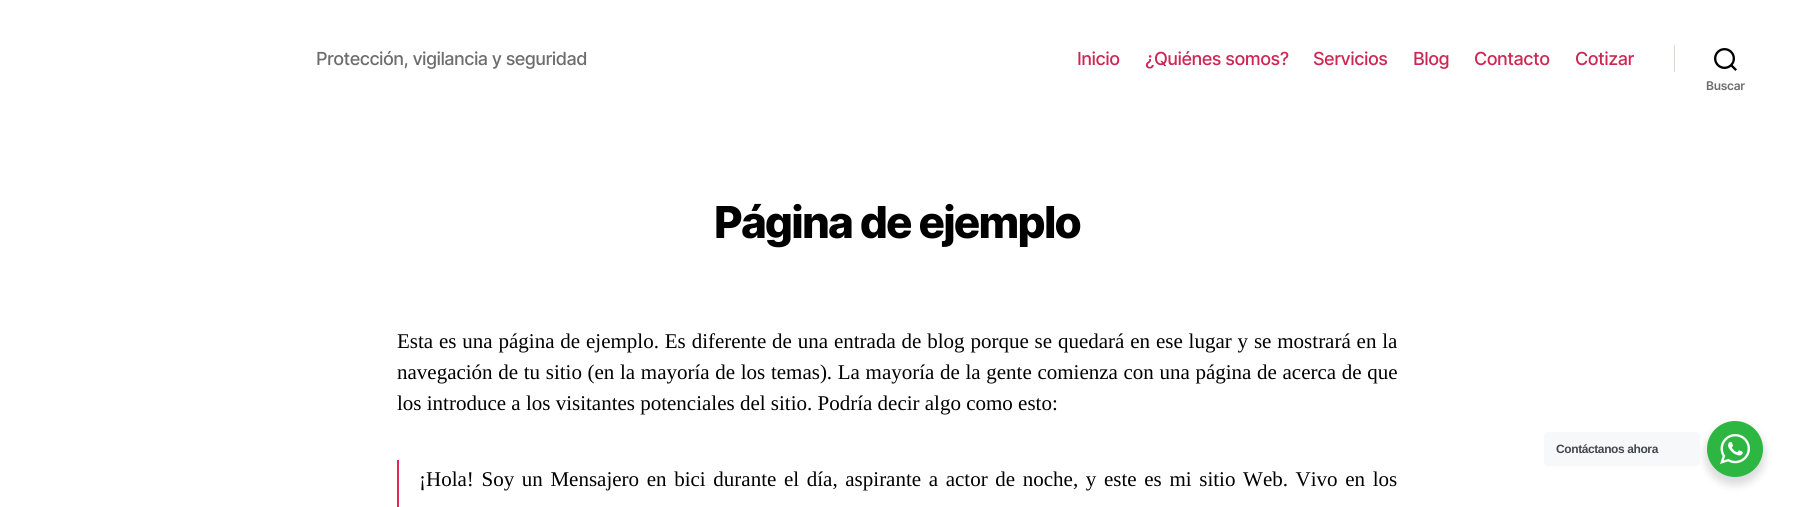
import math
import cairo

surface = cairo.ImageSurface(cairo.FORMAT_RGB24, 1793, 507)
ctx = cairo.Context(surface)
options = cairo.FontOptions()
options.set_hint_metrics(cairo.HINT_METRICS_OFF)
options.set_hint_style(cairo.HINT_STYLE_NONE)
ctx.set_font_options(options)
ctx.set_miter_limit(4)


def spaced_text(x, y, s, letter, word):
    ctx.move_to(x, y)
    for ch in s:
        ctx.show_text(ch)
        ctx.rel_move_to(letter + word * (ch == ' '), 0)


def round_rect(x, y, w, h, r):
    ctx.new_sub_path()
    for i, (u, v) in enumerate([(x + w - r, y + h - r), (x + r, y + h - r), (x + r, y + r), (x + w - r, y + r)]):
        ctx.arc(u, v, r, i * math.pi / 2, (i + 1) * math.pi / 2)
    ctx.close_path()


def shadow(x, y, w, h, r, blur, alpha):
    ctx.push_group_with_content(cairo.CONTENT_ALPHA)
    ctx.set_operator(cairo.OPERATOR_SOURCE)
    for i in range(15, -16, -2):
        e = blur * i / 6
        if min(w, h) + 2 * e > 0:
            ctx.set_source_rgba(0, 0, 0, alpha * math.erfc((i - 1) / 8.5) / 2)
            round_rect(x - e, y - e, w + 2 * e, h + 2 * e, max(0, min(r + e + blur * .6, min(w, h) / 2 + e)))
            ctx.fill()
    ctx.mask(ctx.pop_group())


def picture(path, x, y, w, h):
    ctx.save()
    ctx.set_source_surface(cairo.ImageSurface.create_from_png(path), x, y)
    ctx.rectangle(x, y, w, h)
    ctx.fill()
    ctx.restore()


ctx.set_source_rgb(1, 1, 1)
ctx.paint()
ctx.select_font_face("Inter Medium")
ctx.set_font_size(18)
ctx.set_source_rgb(0.427, 0.427, 0.427)
spaced_text(316, 65, "Protección, vigilancia y seguridad", -0.55, 0)
ctx.set_source_rgb(0.804, 0.149, 0.325)
spaced_text(1077, 65, "Inicio", -0.5, 0)
spaced_text(1145, 65, "¿Quiénes somos?", -0.5, 0)
spaced_text(1313, 65, "Servicios", -0.5, 0)
spaced_text(1413, 65, "Blog", -0.5, 0)
spaced_text(1474, 65, "Contacto", -0.5, 0)
spaced_text(1575, 65, "Cotizar", -0.5, 0)
ctx.set_source_rgb(0.863, 0.843, 0.792)
ctx.rectangle(1674, 45, 1, 27)
ctx.fill()
picture("img1.png", 1714, 48, 23, 23)
ctx.select_font_face("Inter SemiBold")
ctx.set_font_size(12)
ctx.set_source_rgb(0.427, 0.427, 0.427)
spaced_text(1706, 90, "Buscar", -0.25, 0)
ctx.select_font_face("Inter ExtraBold")
ctx.set_font_size(44)
ctx.set_source_rgb(0, 0, 0)
spaced_text(714, 238, "Página de ejemplo", -1.8, 0)
ctx.select_font_face("Liberation Serif")
ctx.set_font_size(21)
spaced_text(397, 348, "Esta es una página de ejemplo. Es diferente de una entrada de blog porque se quedará en ese lugar y se mostrará en la", 0, 0.6)
spaced_text(397, 379, "navegación de tu sitio (en la mayoría de los temas). La mayoría de la gente comienza con una página de acerca de que", 0, 0.4)
ctx.move_to(397, 410)
ctx.show_text("los introduce a los visitantes potenciales del sitio. Podría decir algo como esto:")
ctx.set_source_rgb(0.886, 0.149, 0.345)
ctx.rectangle(397, 460, 2, 47)
ctx.fill()
ctx.set_source_rgb(0, 0, 0)
spaced_text(419, 486, "¡Hola! Soy un Mensajero en bici durante el día, aspirante a actor de noche, y este es mi sitio Web. Vivo en los", 0, 2.4)
ctx.set_source_rgb(0, 0, 0)
shadow(1705, 425, 60, 60, 30, 4, 0.14)
ctx.set_source_rgb(0.961, 0.969, 0.976)
round_rect(1544, 432, 156, 34, 4)
ctx.fill()
ctx.select_font_face("Liberation Sans", cairo.FONT_SLANT_NORMAL, cairo.FONT_WEIGHT_BOLD)
ctx.set_font_size(12)
ctx.set_source_rgb(0.263, 0.278, 0.306)
spaced_text(1556, 453, "Contáctanos ahora", -0.4, 0)
ctx.set_source_rgb(0.176, 0.718, 0.259)
ctx.new_path()
ctx.arc(1735, 449, 28, 0, 2 * math.pi)
ctx.fill()
picture("img2.png", 1720, 434, 30, 30)
surface.write_to_png("page.png")
